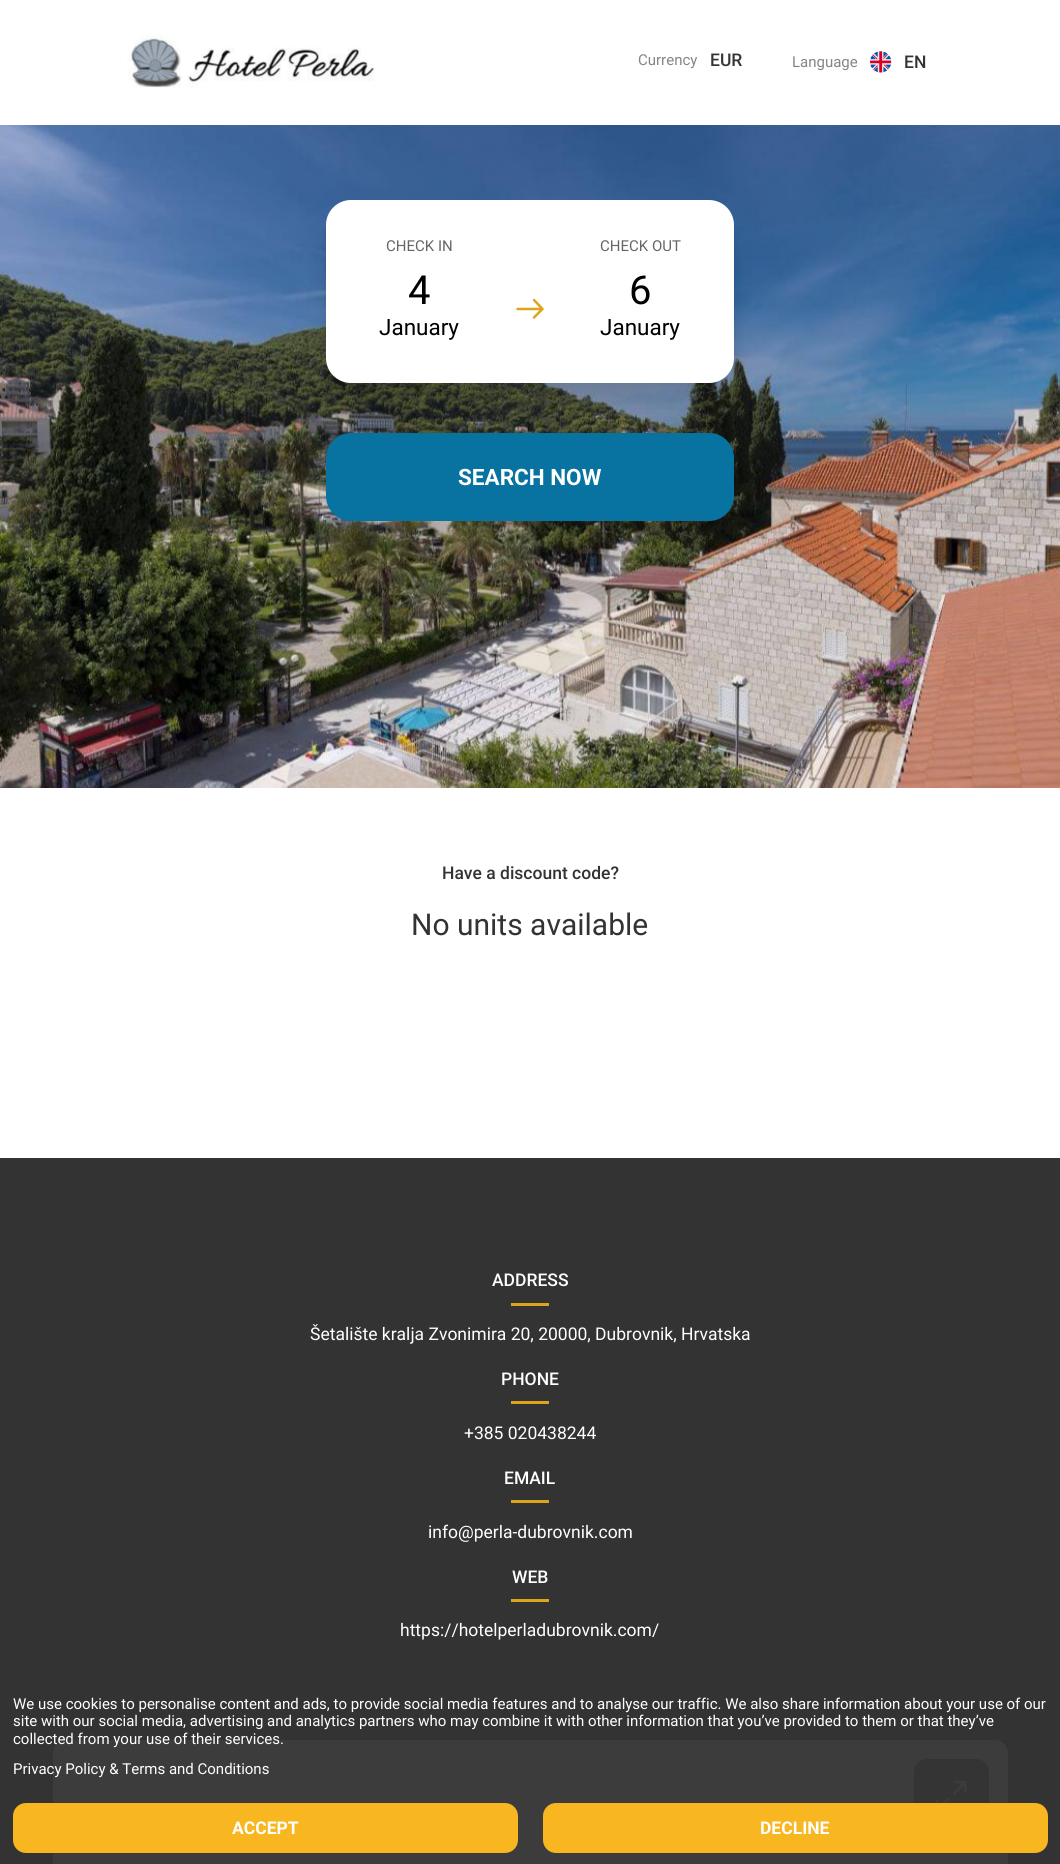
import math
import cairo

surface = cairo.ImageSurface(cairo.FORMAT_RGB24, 1060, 1864)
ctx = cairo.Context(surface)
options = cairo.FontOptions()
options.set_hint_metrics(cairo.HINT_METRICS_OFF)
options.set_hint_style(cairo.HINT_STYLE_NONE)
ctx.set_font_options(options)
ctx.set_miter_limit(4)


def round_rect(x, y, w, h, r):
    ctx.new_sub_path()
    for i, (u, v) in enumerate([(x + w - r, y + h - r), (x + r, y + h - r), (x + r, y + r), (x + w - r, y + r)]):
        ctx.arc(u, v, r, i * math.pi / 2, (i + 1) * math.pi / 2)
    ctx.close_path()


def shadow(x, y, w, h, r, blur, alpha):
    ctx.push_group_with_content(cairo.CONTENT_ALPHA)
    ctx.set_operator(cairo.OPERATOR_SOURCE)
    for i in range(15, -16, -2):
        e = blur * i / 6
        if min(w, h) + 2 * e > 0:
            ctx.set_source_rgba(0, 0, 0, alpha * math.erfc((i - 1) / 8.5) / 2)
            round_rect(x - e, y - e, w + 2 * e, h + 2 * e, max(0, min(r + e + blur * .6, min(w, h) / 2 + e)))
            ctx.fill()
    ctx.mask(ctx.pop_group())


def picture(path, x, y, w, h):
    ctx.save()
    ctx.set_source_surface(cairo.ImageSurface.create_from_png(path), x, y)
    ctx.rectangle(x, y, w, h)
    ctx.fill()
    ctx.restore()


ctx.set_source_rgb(1, 1, 1)
ctx.paint()
picture("img1.png", 127, 34, 247, 54)
ctx.select_font_face("Roboto")
ctx.set_font_size(15)
ctx.set_source_rgb(0.522, 0.522, 0.522)
ctx.move_to(638, 65)
ctx.show_text("Currency")
ctx.select_font_face("Roboto Medium")
ctx.set_font_size(17.5)
ctx.set_source_rgb(0.2, 0.2, 0.2)
ctx.move_to(710, 66)
ctx.show_text("EUR")
ctx.select_font_face("Roboto")
ctx.set_font_size(15)
ctx.set_source_rgb(0.522, 0.522, 0.522)
ctx.move_to(792, 67)
ctx.show_text("Language")
picture("img2.png", 870, 51, 22, 22)
ctx.select_font_face("Roboto Medium")
ctx.set_font_size(17.5)
ctx.set_source_rgb(0.2, 0.2, 0.2)
ctx.move_to(904, 68)
ctx.show_text("EN")
picture("img3.png", 0, 125, 1060, 663)
ctx.set_source_rgb(0, 0, 0)
shadow(326, 466, 408, 89, 25, 12.5, 0.09)
shadow(326, 445, 408, 89, 25, 4.5, 0.06)
ctx.set_source_rgb(0.035, 0.451, 0.627)
round_rect(326, 433, 408, 88, 25)
ctx.fill()
ctx.set_source_rgb(0, 0, 0)
shadow(326, 234, 408, 182, 25, 12.5, 0.09)
shadow(326, 213, 408, 182, 25, 4.5, 0.06)
ctx.set_source_rgb(1, 1, 1)
round_rect(326, 200, 408, 183, 25)
ctx.fill()
ctx.select_font_face("Roboto")
ctx.set_font_size(15)
ctx.set_source_rgb(0.4, 0.4, 0.4)
ctx.move_to(386, 251)
ctx.show_text("CHECK IN")
ctx.set_font_size(40)
ctx.set_source_rgb(0, 0, 0)
ctx.move_to(408, 304)
ctx.show_text("4")
ctx.set_font_size(22.5)
ctx.move_to(379, 335)
ctx.show_text("January")
ctx.new_path()
ctx.move_to(517.5, 309)
ctx.line_to(542.5, 309)
ctx.move_to(534, 300)
ctx.line_to(542.5, 309)
ctx.line_to(534, 317.5)
ctx.set_source_rgb(0.867, 0.643, 0.114)
ctx.set_line_width(2.5)
ctx.set_line_cap(cairo.LINE_CAP_ROUND)
ctx.set_line_join(cairo.LINE_JOIN_ROUND)
ctx.stroke()
ctx.set_font_size(15)
ctx.set_source_rgb(0.4, 0.4, 0.4)
ctx.move_to(600, 251)
ctx.show_text("CHECK OUT")
ctx.set_font_size(40)
ctx.set_source_rgb(0, 0, 0)
ctx.move_to(629, 304)
ctx.show_text("6")
ctx.set_font_size(22.5)
ctx.move_to(600, 335)
ctx.show_text("January")
ctx.select_font_face("Roboto", cairo.FONT_SLANT_NORMAL, cairo.FONT_WEIGHT_BOLD)
ctx.set_source_rgb(1, 1, 1)
ctx.move_to(458, 485)
ctx.show_text("SEARCH NOW")
ctx.select_font_face("Roboto Medium")
ctx.set_font_size(17.5)
ctx.set_source_rgb(0.2, 0.2, 0.2)
ctx.move_to(442, 879)
ctx.show_text("Have a discount code?")
ctx.select_font_face("Roboto")
ctx.set_font_size(30)
ctx.move_to(411, 935)
ctx.show_text("No units available")
ctx.rectangle(0, 1158, 1060, 706)
ctx.fill()
ctx.select_font_face("Roboto Medium")
ctx.set_font_size(17.5)
ctx.set_source_rgb(1, 1, 1)
ctx.move_to(492, 1286)
ctx.show_text("ADDRESS")
ctx.set_source_rgb(0.867, 0.643, 0.114)
ctx.rectangle(511, 1303, 38, 3)
ctx.fill()
ctx.select_font_face("Roboto")
ctx.set_source_rgb(1, 1, 1)
ctx.move_to(310, 1340)
ctx.show_text("Šetalište kralja Zvonimira 20, 20000, Dubrovnik, Hrvatska")
ctx.select_font_face("Roboto Medium")
ctx.move_to(501, 1385)
ctx.show_text("PHONE")
ctx.set_source_rgb(0.867, 0.643, 0.114)
ctx.rectangle(511, 1401, 38, 3)
ctx.fill()
ctx.select_font_face("Roboto")
ctx.set_source_rgb(1, 1, 1)
ctx.move_to(464, 1439)
ctx.show_text("+385 020438244")
ctx.select_font_face("Roboto Medium")
ctx.move_to(504, 1484)
ctx.show_text("EMAIL")
ctx.set_source_rgb(0.867, 0.643, 0.114)
ctx.rectangle(511, 1500, 38, 3)
ctx.fill()
ctx.select_font_face("Roboto")
ctx.set_source_rgb(1, 1, 1)
ctx.move_to(428, 1538)
ctx.show_text("info@perla-dubrovnik.com")
ctx.select_font_face("Roboto Medium")
ctx.move_to(512, 1583)
ctx.show_text("WEB")
ctx.set_source_rgb(0.867, 0.643, 0.114)
ctx.rectangle(511, 1599, 38, 3)
ctx.fill()
ctx.select_font_face("Roboto")
ctx.set_source_rgb(1, 1, 1)
ctx.move_to(400, 1636)
ctx.show_text("https://hotelperladubrovnik.com/")
round_rect(53, 1740, 955, 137, 13)
ctx.fill()
ctx.set_source_rgb(0.361, 0.361, 0.361)
round_rect(914, 1759, 75, 75, 13)
ctx.fill()
picture("img4.png", 935, 1780, 32, 23)
ctx.set_source_rgba(0.2, 0.2, 0.2, 0.95)
ctx.rectangle(53, 1740, 955, 50)
ctx.fill()
ctx.set_font_size(15)
ctx.set_source_rgb(1, 1, 1)
ctx.move_to(13, 1709)
ctx.show_text("We use cookies to personalise content and ads, to provide social media features and to analyse our traffic. We also share information about your use of our")
ctx.move_to(13, 1726)
ctx.show_text("site with our social media, advertising and analytics partners who may combine it with other information that you’ve provided to them or that they’ve")
ctx.move_to(13, 1744)
ctx.show_text("collected from your use of their services.")
ctx.move_to(13, 1774)
ctx.show_text("Privacy Policy & Terms and Conditions")
ctx.set_source_rgba(0.2, 0.2, 0.2, 0.95)
ctx.rectangle(53, 1790, 955, 74)
ctx.fill()
ctx.set_source_rgb(0.969, 0.718, 0.129)
round_rect(13, 1803, 505, 50, 13)
ctx.fill()
ctx.select_font_face("Roboto", cairo.FONT_SLANT_NORMAL, cairo.FONT_WEIGHT_BOLD)
ctx.set_font_size(17.5)
ctx.set_source_rgb(1, 1, 1)
ctx.move_to(232, 1834)
ctx.show_text("ACCEPT")
ctx.set_source_rgb(0.969, 0.718, 0.129)
round_rect(543, 1803, 505, 50, 13)
ctx.fill()
ctx.set_source_rgb(1, 1, 1)
ctx.move_to(760, 1834)
ctx.show_text("DECLINE")
surface.write_to_png("page.png")
